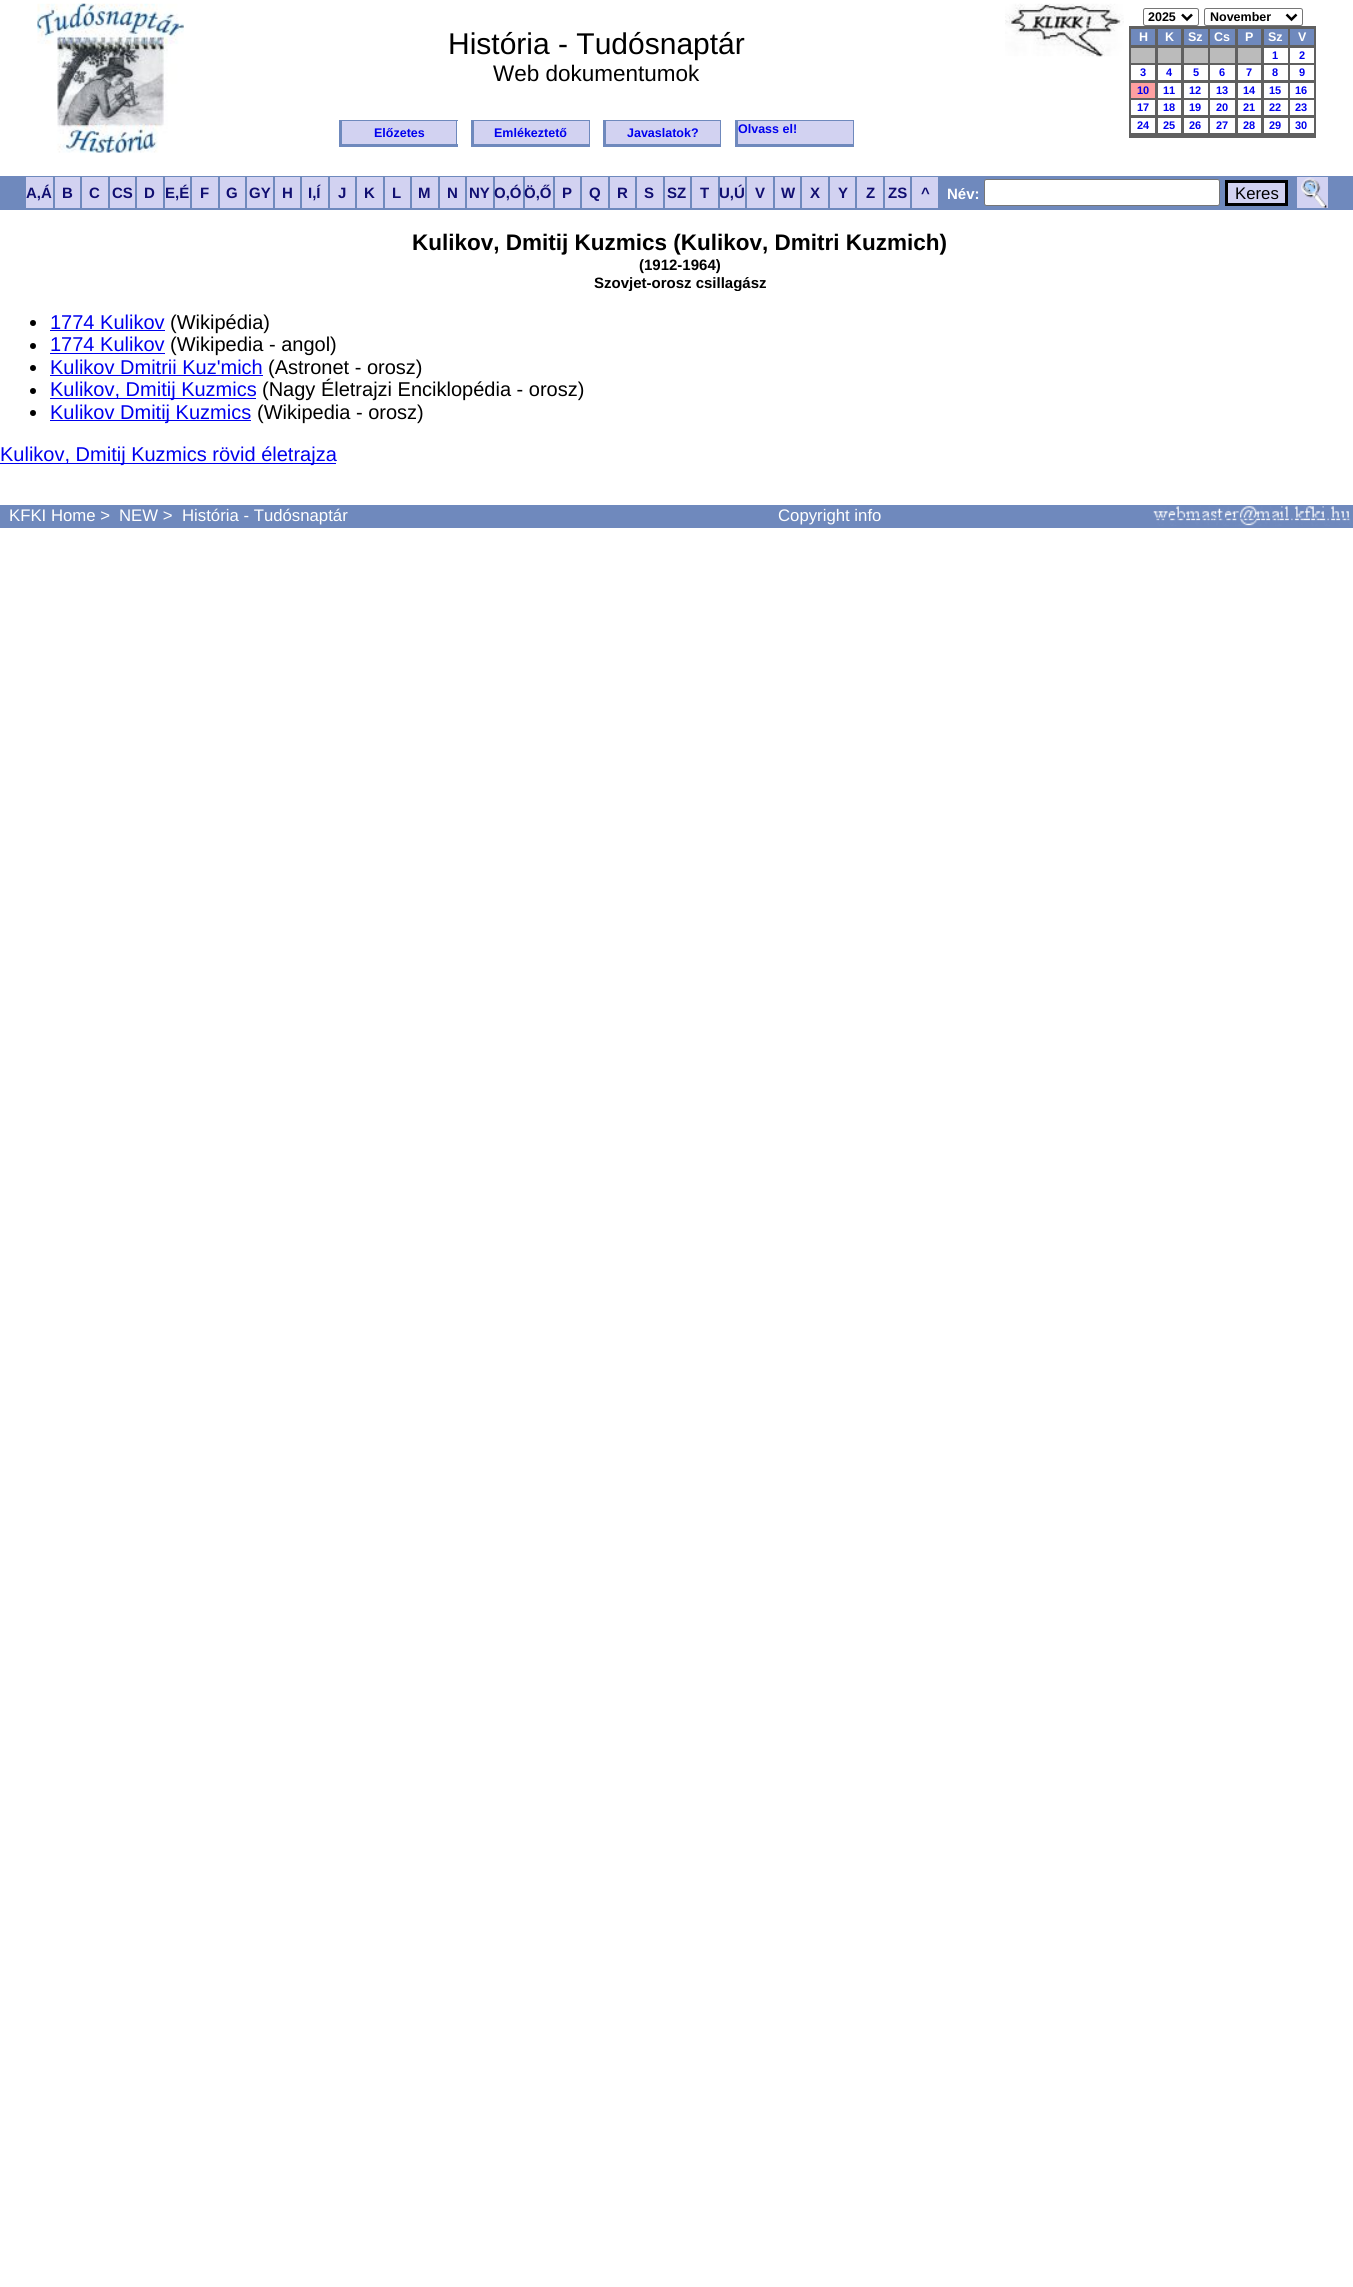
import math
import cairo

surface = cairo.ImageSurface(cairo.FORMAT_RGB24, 1353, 2287)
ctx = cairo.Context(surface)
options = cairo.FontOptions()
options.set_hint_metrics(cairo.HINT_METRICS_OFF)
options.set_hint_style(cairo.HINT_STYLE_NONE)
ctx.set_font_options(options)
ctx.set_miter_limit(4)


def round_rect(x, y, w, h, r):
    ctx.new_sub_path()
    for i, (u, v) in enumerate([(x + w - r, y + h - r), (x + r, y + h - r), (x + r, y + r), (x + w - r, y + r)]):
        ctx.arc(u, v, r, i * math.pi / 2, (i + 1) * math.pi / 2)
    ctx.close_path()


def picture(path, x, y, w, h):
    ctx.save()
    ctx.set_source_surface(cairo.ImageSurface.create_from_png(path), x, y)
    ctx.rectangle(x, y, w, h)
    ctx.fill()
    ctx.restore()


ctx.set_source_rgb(1, 1, 1)
ctx.paint()
picture("img1.png", 37, 3, 147, 150)
ctx.select_font_face("Liberation Sans")
ctx.set_font_size(30)
ctx.set_source_rgb(0, 0, 0)
ctx.move_to(448, 54)
ctx.show_text("História - Tudósnaptár")
ctx.set_font_size(22.5)
ctx.move_to(493, 81)
ctx.show_text("Web dokumentumok")
picture("img2.png", 1005, 3, 119, 54)
round_rect(1143.5, 8.5, 55, 17, 2)
ctx.set_source_rgb(0.463, 0.463, 0.463)
ctx.set_line_width(1)
ctx.stroke()
ctx.new_path()
ctx.move_to(1182, 14.5)
ctx.line_to(1187, 19.5)
ctx.line_to(1192, 14.5)
ctx.set_source_rgb(0, 0, 0)
ctx.set_line_width(2.5)
ctx.stroke()
ctx.select_font_face("Liberation Sans", cairo.FONT_SLANT_NORMAL, cairo.FONT_WEIGHT_BOLD)
ctx.set_font_size(12.5)
ctx.move_to(1148, 21)
ctx.show_text("2025")
round_rect(1204.5, 8.5, 98, 17, 2)
ctx.set_source_rgb(0.463, 0.463, 0.463)
ctx.set_line_width(1)
ctx.stroke()
ctx.new_path()
ctx.move_to(1286.5, 14.5)
ctx.line_to(1291.5, 19.5)
ctx.line_to(1296.5, 14.5)
ctx.set_source_rgb(0, 0, 0)
ctx.set_line_width(2.5)
ctx.stroke()
ctx.move_to(1210, 21)
ctx.show_text("November")
ctx.set_source_rgb(0.376, 0.376, 0.376)
ctx.rectangle(1129, 26, 187, 112)
ctx.fill()
ctx.set_source_rgb(0.435, 0.537, 0.741)
ctx.rectangle(1131, 29, 24, 16)
ctx.fill()
ctx.set_source_rgb(1, 1, 1)
ctx.move_to(1139, 41)
ctx.show_text("H")
ctx.set_source_rgb(0.435, 0.537, 0.741)
ctx.rectangle(1158, 29, 23, 16)
ctx.fill()
ctx.set_source_rgb(1, 1, 1)
ctx.move_to(1165, 41)
ctx.show_text("K")
ctx.set_source_rgb(0.435, 0.537, 0.741)
ctx.rectangle(1184, 29, 24, 16)
ctx.fill()
ctx.set_source_rgb(1, 1, 1)
ctx.move_to(1188, 41)
ctx.show_text("Sz")
ctx.set_source_rgb(0.435, 0.537, 0.741)
ctx.rectangle(1210, 29, 25, 16)
ctx.fill()
ctx.set_source_rgb(1, 1, 1)
ctx.move_to(1214, 41)
ctx.show_text("Cs")
ctx.set_source_rgb(0.435, 0.537, 0.741)
ctx.rectangle(1238, 29, 23, 16)
ctx.fill()
ctx.set_source_rgb(1, 1, 1)
ctx.move_to(1245, 41)
ctx.show_text("P")
ctx.set_source_rgb(0.435, 0.537, 0.741)
ctx.rectangle(1264, 29, 24, 16)
ctx.fill()
ctx.set_source_rgb(1, 1, 1)
ctx.move_to(1268, 41)
ctx.show_text("Sz")
ctx.set_source_rgb(0.435, 0.537, 0.741)
ctx.rectangle(1290, 29, 24, 16)
ctx.fill()
ctx.set_source_rgb(1, 1, 1)
ctx.move_to(1298, 41)
ctx.show_text("V")
ctx.set_source_rgb(0.733, 0.733, 0.733)
ctx.rectangle(1131, 48, 24, 15)
ctx.fill()
ctx.rectangle(1158, 48, 23, 15)
ctx.fill()
ctx.rectangle(1184, 48, 24, 15)
ctx.fill()
ctx.rectangle(1210, 48, 25, 15)
ctx.fill()
ctx.rectangle(1238, 48, 23, 15)
ctx.fill()
ctx.set_source_rgb(1, 1, 1)
ctx.rectangle(1264, 48, 24, 15)
ctx.fill()
ctx.set_font_size(11)
ctx.set_source_rgb(0, 0, 0.933)
ctx.move_to(1272, 59)
ctx.show_text("1")
ctx.set_source_rgb(1, 1, 1)
ctx.rectangle(1290, 48, 24, 15)
ctx.fill()
ctx.set_source_rgb(0, 0, 0.933)
ctx.move_to(1299, 59)
ctx.show_text("2")
ctx.set_source_rgb(1, 1, 1)
ctx.rectangle(1131, 65, 24, 15)
ctx.fill()
ctx.set_source_rgb(0, 0, 0.933)
ctx.move_to(1140, 76)
ctx.show_text("3")
ctx.set_source_rgb(1, 1, 1)
ctx.rectangle(1158, 65, 23, 15)
ctx.fill()
ctx.set_source_rgb(0, 0, 0.933)
ctx.move_to(1166, 76)
ctx.show_text("4")
ctx.set_source_rgb(1, 1, 1)
ctx.rectangle(1184, 65, 24, 15)
ctx.fill()
ctx.set_source_rgb(0, 0, 0.933)
ctx.move_to(1193, 76)
ctx.show_text("5")
ctx.set_source_rgb(1, 1, 1)
ctx.rectangle(1210, 65, 25, 15)
ctx.fill()
ctx.set_source_rgb(0, 0, 0.933)
ctx.move_to(1219, 76)
ctx.show_text("6")
ctx.set_source_rgb(1, 1, 1)
ctx.rectangle(1238, 65, 23, 15)
ctx.fill()
ctx.set_source_rgb(0, 0, 0.933)
ctx.move_to(1246, 76)
ctx.show_text("7")
ctx.set_source_rgb(1, 1, 1)
ctx.rectangle(1264, 65, 24, 15)
ctx.fill()
ctx.set_source_rgb(0, 0, 0.933)
ctx.move_to(1272, 76)
ctx.show_text("8")
ctx.set_source_rgb(1, 1, 1)
ctx.rectangle(1290, 65, 24, 15)
ctx.fill()
ctx.set_source_rgb(0, 0, 0.933)
ctx.move_to(1299, 76)
ctx.show_text("9")
ctx.set_source_rgb(1, 0.627, 0.627)
ctx.rectangle(1131, 83, 24, 15)
ctx.fill()
ctx.set_source_rgb(0, 0, 0.933)
ctx.move_to(1137, 94)
ctx.show_text("10")
ctx.set_source_rgb(1, 1, 1)
ctx.rectangle(1158, 83, 23, 15)
ctx.fill()
ctx.set_source_rgb(0, 0, 0.933)
ctx.move_to(1163, 94)
ctx.show_text("11")
ctx.set_source_rgb(1, 1, 1)
ctx.rectangle(1184, 83, 24, 15)
ctx.fill()
ctx.set_source_rgb(0, 0, 0.933)
ctx.move_to(1189, 94)
ctx.show_text("12")
ctx.set_source_rgb(1, 1, 1)
ctx.rectangle(1210, 83, 25, 15)
ctx.fill()
ctx.set_source_rgb(0, 0, 0.933)
ctx.move_to(1216, 94)
ctx.show_text("13")
ctx.set_source_rgb(1, 1, 1)
ctx.rectangle(1238, 83, 23, 15)
ctx.fill()
ctx.set_source_rgb(0, 0, 0.933)
ctx.move_to(1243, 94)
ctx.show_text("14")
ctx.set_source_rgb(1, 1, 1)
ctx.rectangle(1264, 83, 24, 15)
ctx.fill()
ctx.set_source_rgb(0, 0, 0.933)
ctx.move_to(1269, 94)
ctx.show_text("15")
ctx.set_source_rgb(1, 1, 1)
ctx.rectangle(1290, 83, 24, 15)
ctx.fill()
ctx.set_source_rgb(0, 0, 0.933)
ctx.move_to(1295, 94)
ctx.show_text("16")
ctx.set_source_rgb(1, 1, 1)
ctx.rectangle(1131, 100, 24, 15)
ctx.fill()
ctx.set_source_rgb(0, 0, 0.933)
ctx.move_to(1137, 111)
ctx.show_text("17")
ctx.set_source_rgb(1, 1, 1)
ctx.rectangle(1158, 100, 23, 15)
ctx.fill()
ctx.set_source_rgb(0, 0, 0.933)
ctx.move_to(1163, 111)
ctx.show_text("18")
ctx.set_source_rgb(1, 1, 1)
ctx.rectangle(1184, 100, 24, 15)
ctx.fill()
ctx.set_source_rgb(0, 0, 0.933)
ctx.move_to(1189, 111)
ctx.show_text("19")
ctx.set_source_rgb(1, 1, 1)
ctx.rectangle(1210, 100, 25, 15)
ctx.fill()
ctx.set_source_rgb(0, 0, 0.933)
ctx.move_to(1216, 111)
ctx.show_text("20")
ctx.set_source_rgb(1, 1, 1)
ctx.rectangle(1238, 100, 23, 15)
ctx.fill()
ctx.set_source_rgb(0, 0, 0.933)
ctx.move_to(1243, 111)
ctx.show_text("21")
ctx.set_source_rgb(1, 1, 1)
ctx.rectangle(1264, 100, 24, 15)
ctx.fill()
ctx.set_source_rgb(0, 0, 0.933)
ctx.move_to(1269, 111)
ctx.show_text("22")
ctx.set_source_rgb(1, 1, 1)
ctx.rectangle(1290, 100, 24, 15)
ctx.fill()
ctx.set_source_rgb(0, 0, 0.933)
ctx.move_to(1295, 111)
ctx.show_text("23")
ctx.set_source_rgb(1, 1, 1)
ctx.rectangle(1131, 118, 24, 15)
ctx.fill()
ctx.set_source_rgb(0, 0, 0.933)
ctx.move_to(1137, 129)
ctx.show_text("24")
ctx.set_source_rgb(1, 1, 1)
ctx.rectangle(1158, 118, 23, 15)
ctx.fill()
ctx.set_source_rgb(0, 0, 0.933)
ctx.move_to(1163, 129)
ctx.show_text("25")
ctx.set_source_rgb(1, 1, 1)
ctx.rectangle(1184, 118, 24, 15)
ctx.fill()
ctx.set_source_rgb(0, 0, 0.933)
ctx.move_to(1189, 129)
ctx.show_text("26")
ctx.set_source_rgb(1, 1, 1)
ctx.rectangle(1210, 118, 25, 15)
ctx.fill()
ctx.set_source_rgb(0, 0, 0.933)
ctx.move_to(1216, 129)
ctx.show_text("27")
ctx.set_source_rgb(1, 1, 1)
ctx.rectangle(1238, 118, 23, 15)
ctx.fill()
ctx.set_source_rgb(0, 0, 0.933)
ctx.move_to(1243, 129)
ctx.show_text("28")
ctx.set_source_rgb(1, 1, 1)
ctx.rectangle(1264, 118, 24, 15)
ctx.fill()
ctx.set_source_rgb(0, 0, 0.933)
ctx.move_to(1269, 129)
ctx.show_text("29")
ctx.set_source_rgb(1, 1, 1)
ctx.rectangle(1290, 118, 24, 15)
ctx.fill()
ctx.set_source_rgb(0, 0, 0.933)
ctx.move_to(1295, 129)
ctx.show_text("30")
ctx.set_source_rgb(0.824, 0.824, 0.945)
ctx.rectangle(342, 121, 114, 23)
ctx.fill()
ctx.set_source_rgb(0.435, 0.537, 0.741)
ctx.rectangle(339, 120, 119, 1)
ctx.fill()
ctx.rectangle(456, 120, 1, 26)
ctx.fill()
ctx.rectangle(339, 144, 119, 3)
ctx.fill()
ctx.rectangle(339, 120, 3, 26)
ctx.fill()
ctx.set_font_size(12.5)
ctx.set_source_rgb(0, 0, 0.933)
ctx.move_to(374, 137)
ctx.show_text("Előzetes")
ctx.set_source_rgb(0.824, 0.824, 0.945)
ctx.rectangle(474, 121, 115, 23)
ctx.fill()
ctx.set_source_rgb(0.435, 0.537, 0.741)
ctx.rectangle(471, 120, 119, 1)
ctx.fill()
ctx.rectangle(589, 120, 1, 26)
ctx.fill()
ctx.rectangle(471, 144, 119, 3)
ctx.fill()
ctx.rectangle(471, 120, 3, 26)
ctx.fill()
ctx.set_source_rgb(0, 0, 0.933)
ctx.move_to(494, 137)
ctx.show_text("Emlékeztető")
ctx.set_source_rgb(0.824, 0.824, 0.945)
ctx.rectangle(606, 121, 114, 23)
ctx.fill()
ctx.set_source_rgb(0.435, 0.537, 0.741)
ctx.rectangle(603, 120, 118, 1)
ctx.fill()
ctx.rectangle(720, 120, 1, 26)
ctx.fill()
ctx.rectangle(603, 144, 118, 3)
ctx.fill()
ctx.rectangle(603, 120, 3, 26)
ctx.fill()
ctx.set_source_rgb(0, 0, 0.933)
ctx.move_to(627, 137)
ctx.show_text("Javaslatok?")
ctx.set_source_rgb(0.824, 0.824, 0.945)
ctx.rectangle(738, 121, 115, 23)
ctx.fill()
ctx.set_source_rgb(0.435, 0.537, 0.741)
ctx.rectangle(735, 120, 119, 1)
ctx.fill()
ctx.rectangle(853, 120, 1, 26)
ctx.fill()
ctx.rectangle(735, 144, 119, 3)
ctx.fill()
ctx.rectangle(735, 120, 3, 26)
ctx.fill()
ctx.set_source_rgb(0, 0, 0.933)
ctx.move_to(738, 133)
ctx.show_text("Olvass el!")
ctx.set_source_rgb(0.435, 0.537, 0.741)
ctx.rectangle(0, 176, 1353, 34)
ctx.fill()
ctx.set_source_rgb(0.824, 0.824, 0.945)
ctx.rectangle(26, 177, 27, 31)
ctx.fill()
ctx.set_font_size(15)
ctx.set_source_rgb(0.063, 0.055, 0.443)
ctx.move_to(26, 198)
ctx.show_text("A,Á")
ctx.set_source_rgb(0.824, 0.824, 0.945)
ctx.rectangle(55, 177, 25, 31)
ctx.fill()
ctx.set_source_rgb(0.063, 0.055, 0.443)
ctx.move_to(62, 198)
ctx.show_text("B")
ctx.set_source_rgb(0.824, 0.824, 0.945)
ctx.rectangle(82, 177, 26, 31)
ctx.fill()
ctx.set_source_rgb(0.063, 0.055, 0.443)
ctx.move_to(89, 198)
ctx.show_text("C")
ctx.set_source_rgb(0.824, 0.824, 0.945)
ctx.rectangle(110, 177, 25, 31)
ctx.fill()
ctx.set_source_rgb(0.063, 0.055, 0.443)
ctx.move_to(112, 198)
ctx.show_text("CS")
ctx.set_source_rgb(0.824, 0.824, 0.945)
ctx.rectangle(137, 177, 26, 31)
ctx.fill()
ctx.set_source_rgb(0.063, 0.055, 0.443)
ctx.move_to(144, 198)
ctx.show_text("D")
ctx.set_source_rgb(0.824, 0.824, 0.945)
ctx.rectangle(165, 177, 25, 31)
ctx.fill()
ctx.set_source_rgb(0.063, 0.055, 0.443)
ctx.move_to(165, 198)
ctx.show_text("E,É")
ctx.set_source_rgb(0.824, 0.824, 0.945)
ctx.rectangle(192, 177, 26, 31)
ctx.fill()
ctx.set_source_rgb(0.063, 0.055, 0.443)
ctx.move_to(200, 198)
ctx.show_text("F")
ctx.set_source_rgb(0.824, 0.824, 0.945)
ctx.rectangle(220, 177, 25, 31)
ctx.fill()
ctx.set_source_rgb(0.063, 0.055, 0.443)
ctx.move_to(226, 198)
ctx.show_text("G")
ctx.set_source_rgb(0.824, 0.824, 0.945)
ctx.rectangle(247, 177, 26, 31)
ctx.fill()
ctx.set_source_rgb(0.063, 0.055, 0.443)
ctx.move_to(249, 198)
ctx.show_text("GY")
ctx.set_source_rgb(0.824, 0.824, 0.945)
ctx.rectangle(275, 177, 25, 31)
ctx.fill()
ctx.set_source_rgb(0.063, 0.055, 0.443)
ctx.move_to(282, 198)
ctx.show_text("H")
ctx.set_source_rgb(0.824, 0.824, 0.945)
ctx.rectangle(302, 177, 26, 31)
ctx.fill()
ctx.set_source_rgb(0.063, 0.055, 0.443)
ctx.move_to(308, 198)
ctx.show_text("I,Í")
ctx.set_source_rgb(0.824, 0.824, 0.945)
ctx.rectangle(330, 177, 25, 31)
ctx.fill()
ctx.set_source_rgb(0.063, 0.055, 0.443)
ctx.move_to(338, 198)
ctx.show_text("J")
ctx.set_source_rgb(0.824, 0.824, 0.945)
ctx.rectangle(357, 177, 26, 31)
ctx.fill()
ctx.set_source_rgb(0.063, 0.055, 0.443)
ctx.move_to(364, 198)
ctx.show_text("K")
ctx.set_source_rgb(0.824, 0.824, 0.945)
ctx.rectangle(385, 177, 25, 31)
ctx.fill()
ctx.set_source_rgb(0.063, 0.055, 0.443)
ctx.move_to(392, 198)
ctx.show_text("L")
ctx.set_source_rgb(0.824, 0.824, 0.945)
ctx.rectangle(412, 177, 26, 31)
ctx.fill()
ctx.set_source_rgb(0.063, 0.055, 0.443)
ctx.move_to(418, 198)
ctx.show_text("M")
ctx.set_source_rgb(0.824, 0.824, 0.945)
ctx.rectangle(440, 177, 25, 31)
ctx.fill()
ctx.set_source_rgb(0.063, 0.055, 0.443)
ctx.move_to(447, 198)
ctx.show_text("N")
ctx.set_source_rgb(0.824, 0.824, 0.945)
ctx.rectangle(467, 177, 26, 31)
ctx.fill()
ctx.set_source_rgb(0.063, 0.055, 0.443)
ctx.move_to(469, 198)
ctx.show_text("NY")
ctx.set_source_rgb(0.824, 0.824, 0.945)
ctx.rectangle(495, 177, 28, 31)
ctx.fill()
ctx.set_source_rgb(0.063, 0.055, 0.443)
ctx.move_to(494, 198)
ctx.show_text("O,Ó")
ctx.set_source_rgb(0.824, 0.824, 0.945)
ctx.rectangle(525, 177, 28, 31)
ctx.fill()
ctx.set_source_rgb(0.063, 0.055, 0.443)
ctx.move_to(524, 198)
ctx.show_text("Ö,Ő")
ctx.set_source_rgb(0.824, 0.824, 0.945)
ctx.rectangle(555, 177, 25, 31)
ctx.fill()
ctx.set_source_rgb(0.063, 0.055, 0.443)
ctx.move_to(562, 198)
ctx.show_text("P")
ctx.set_source_rgb(0.824, 0.824, 0.945)
ctx.rectangle(582, 177, 26, 31)
ctx.fill()
ctx.set_source_rgb(0.063, 0.055, 0.443)
ctx.move_to(589, 198)
ctx.show_text("Q")
ctx.set_source_rgb(0.824, 0.824, 0.945)
ctx.rectangle(610, 177, 25, 31)
ctx.fill()
ctx.set_source_rgb(0.063, 0.055, 0.443)
ctx.move_to(617, 198)
ctx.show_text("R")
ctx.set_source_rgb(0.824, 0.824, 0.945)
ctx.rectangle(637, 177, 26, 31)
ctx.fill()
ctx.set_source_rgb(0.063, 0.055, 0.443)
ctx.move_to(644, 198)
ctx.show_text("S")
ctx.set_source_rgb(0.824, 0.824, 0.945)
ctx.rectangle(665, 177, 25, 31)
ctx.fill()
ctx.set_source_rgb(0.063, 0.055, 0.443)
ctx.move_to(667, 198)
ctx.show_text("SZ")
ctx.set_source_rgb(0.824, 0.824, 0.945)
ctx.rectangle(692, 177, 26, 31)
ctx.fill()
ctx.set_source_rgb(0.063, 0.055, 0.443)
ctx.move_to(700, 198)
ctx.show_text("T")
ctx.set_source_rgb(0.824, 0.824, 0.945)
ctx.rectangle(720, 177, 25, 31)
ctx.fill()
ctx.set_source_rgb(0.063, 0.055, 0.443)
ctx.move_to(719, 198)
ctx.show_text("U,Ú")
ctx.set_source_rgb(0.824, 0.824, 0.945)
ctx.rectangle(747, 177, 26, 31)
ctx.fill()
ctx.set_source_rgb(0.063, 0.055, 0.443)
ctx.move_to(755, 198)
ctx.show_text("V")
ctx.set_source_rgb(0.824, 0.824, 0.945)
ctx.rectangle(775, 177, 25, 31)
ctx.fill()
ctx.set_source_rgb(0.063, 0.055, 0.443)
ctx.move_to(781, 198)
ctx.show_text("W")
ctx.set_source_rgb(0.824, 0.824, 0.945)
ctx.rectangle(802, 177, 26, 31)
ctx.fill()
ctx.set_source_rgb(0.063, 0.055, 0.443)
ctx.move_to(810, 198)
ctx.show_text("X")
ctx.set_source_rgb(0.824, 0.824, 0.945)
ctx.rectangle(830, 177, 25, 31)
ctx.fill()
ctx.set_source_rgb(0.063, 0.055, 0.443)
ctx.move_to(838, 198)
ctx.show_text("Y")
ctx.set_source_rgb(0.824, 0.824, 0.945)
ctx.rectangle(857, 177, 26, 31)
ctx.fill()
ctx.set_source_rgb(0.063, 0.055, 0.443)
ctx.move_to(866, 198)
ctx.show_text("Z")
ctx.set_source_rgb(0.824, 0.824, 0.945)
ctx.rectangle(885, 177, 25, 31)
ctx.fill()
ctx.set_source_rgb(0.063, 0.055, 0.443)
ctx.move_to(888, 198)
ctx.show_text("ZS")
ctx.set_source_rgb(0.824, 0.824, 0.945)
ctx.rectangle(912, 177, 26, 31)
ctx.fill()
ctx.set_source_rgb(0.063, 0.055, 0.443)
ctx.move_to(921, 198)
ctx.show_text("^")
ctx.set_source_rgb(1, 1, 1)
ctx.move_to(947, 199)
ctx.show_text("Név:")
round_rect(984.5, 179.5, 235, 26, 2)
ctx.fill_preserve()
ctx.set_source_rgb(0.463, 0.463, 0.463)
ctx.set_line_width(1)
ctx.stroke()
ctx.set_source_rgb(0.824, 0.824, 0.945)
ctx.rectangle(1226.5, 181.5, 60, 23)
ctx.fill_preserve()
ctx.set_source_rgb(0, 0, 0)
ctx.set_line_width(3)
ctx.stroke()
ctx.select_font_face("Liberation Sans")
ctx.set_font_size(16.75)
ctx.move_to(1235, 199)
ctx.show_text("Keres")
ctx.set_source_rgb(0.824, 0.824, 0.945)
ctx.rectangle(1297, 177, 31, 31)
ctx.fill()
picture("img3.png", 1301, 177, 27, 31)
ctx.select_font_face("Liberation Sans", cairo.FONT_SLANT_NORMAL, cairo.FONT_WEIGHT_BOLD)
ctx.set_font_size(22.5)
ctx.set_source_rgb(0, 0, 0)
ctx.move_to(412, 250)
ctx.show_text("Kulikov, Dmitij Kuzmics (Kulikov, Dmitri Kuzmich)")
ctx.set_font_size(15)
ctx.move_to(639, 270)
ctx.show_text("(1912-1964)")
ctx.save()
ctx.rectangle(6, 230, 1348, 61)
ctx.clip()
ctx.move_to(594, 288)
ctx.show_text("Szovjet-orosz csillagász")
ctx.restore()
ctx.new_path()
ctx.arc(33, 323, 3, 0, 2 * math.pi)
ctx.fill()
ctx.select_font_face("Liberation Sans")
ctx.set_font_size(20)
ctx.set_source_rgb(0, 0, 0.933)
ctx.move_to(50, 329)
ctx.show_text("1774 Kulikov")
ctx.rectangle(50, 330, 115, 1)
ctx.fill()
ctx.set_source_rgb(0, 0, 0)
ctx.move_to(170, 329)
ctx.show_text("(Wikipédia)")
ctx.new_path()
ctx.arc(33, 346, 3, 0, 2 * math.pi)
ctx.fill()
ctx.set_source_rgb(0, 0, 0.933)
ctx.move_to(50, 351)
ctx.show_text("1774 Kulikov")
ctx.rectangle(50, 353, 115, 1)
ctx.fill()
ctx.set_source_rgb(0, 0, 0)
ctx.move_to(170, 351)
ctx.show_text("(Wikipedia - angol)")
ctx.new_path()
ctx.arc(33, 368, 3, 0, 2 * math.pi)
ctx.fill()
ctx.set_source_rgb(0, 0, 0.933)
ctx.move_to(50, 374)
ctx.show_text("Kulikov Dmitrii Kuz'mich")
ctx.rectangle(50, 375, 213, 1)
ctx.fill()
ctx.set_source_rgb(0, 0, 0)
ctx.move_to(268, 374)
ctx.show_text("(Astronet - orosz)")
ctx.new_path()
ctx.arc(33, 391, 3, 0, 2 * math.pi)
ctx.fill()
ctx.set_source_rgb(0, 0, 0.933)
ctx.rectangle(50, 398, 206, 1)
ctx.fill()
ctx.move_to(50, 396)
ctx.show_text("Kulikov, Dmitij Kuzmics")
ctx.set_source_rgb(0, 0, 0)
ctx.move_to(262, 396)
ctx.show_text("(Nagy Életrajzi Enciklopédia - orosz)")
ctx.new_path()
ctx.arc(33, 413, 3, 0, 2 * math.pi)
ctx.fill()
ctx.set_source_rgb(0, 0, 0.933)
ctx.rectangle(50, 420, 201, 1)
ctx.fill()
ctx.move_to(50, 419)
ctx.show_text("Kulikov Dmitij Kuzmics")
ctx.set_source_rgb(0, 0, 0)
ctx.move_to(257, 419)
ctx.show_text("(Wikipedia - orosz)")
ctx.set_source_rgb(0, 0, 0.933)
ctx.rectangle(0, 463, 336, 1)
ctx.fill()
ctx.move_to(0, 461)
ctx.show_text("Kulikov, Dmitij Kuzmics rövid életrajza")
ctx.set_source_rgb(0.435, 0.537, 0.741)
ctx.rectangle(0, 505, 1353, 23)
ctx.fill()
ctx.set_font_size(16.75)
ctx.set_source_rgb(1, 1, 1)
ctx.move_to(9, 521)
ctx.show_text("KFKI Home >")
ctx.move_to(119, 521)
ctx.show_text("NEW >")
ctx.move_to(182, 521)
ctx.show_text("História - Tudósnaptár")
ctx.move_to(778, 521)
ctx.show_text("Copyright info")
picture("img4.png", 1153, 506, 198, 20)
surface.write_to_png("page.png")
